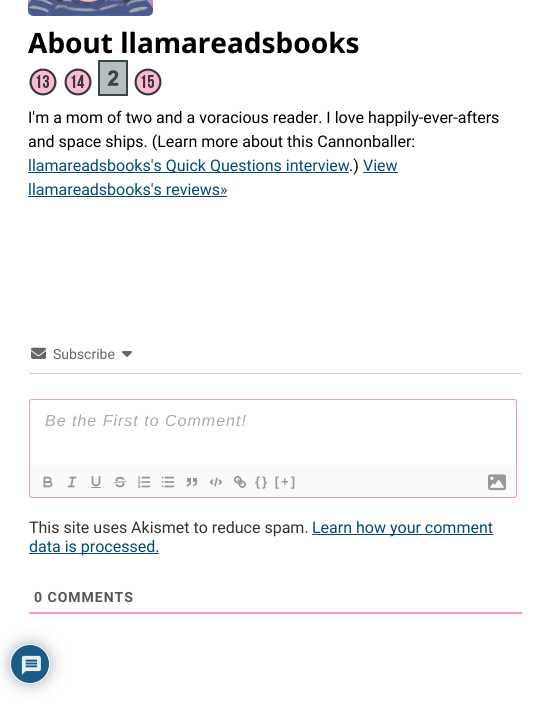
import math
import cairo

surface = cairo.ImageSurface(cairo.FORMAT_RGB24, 551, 704)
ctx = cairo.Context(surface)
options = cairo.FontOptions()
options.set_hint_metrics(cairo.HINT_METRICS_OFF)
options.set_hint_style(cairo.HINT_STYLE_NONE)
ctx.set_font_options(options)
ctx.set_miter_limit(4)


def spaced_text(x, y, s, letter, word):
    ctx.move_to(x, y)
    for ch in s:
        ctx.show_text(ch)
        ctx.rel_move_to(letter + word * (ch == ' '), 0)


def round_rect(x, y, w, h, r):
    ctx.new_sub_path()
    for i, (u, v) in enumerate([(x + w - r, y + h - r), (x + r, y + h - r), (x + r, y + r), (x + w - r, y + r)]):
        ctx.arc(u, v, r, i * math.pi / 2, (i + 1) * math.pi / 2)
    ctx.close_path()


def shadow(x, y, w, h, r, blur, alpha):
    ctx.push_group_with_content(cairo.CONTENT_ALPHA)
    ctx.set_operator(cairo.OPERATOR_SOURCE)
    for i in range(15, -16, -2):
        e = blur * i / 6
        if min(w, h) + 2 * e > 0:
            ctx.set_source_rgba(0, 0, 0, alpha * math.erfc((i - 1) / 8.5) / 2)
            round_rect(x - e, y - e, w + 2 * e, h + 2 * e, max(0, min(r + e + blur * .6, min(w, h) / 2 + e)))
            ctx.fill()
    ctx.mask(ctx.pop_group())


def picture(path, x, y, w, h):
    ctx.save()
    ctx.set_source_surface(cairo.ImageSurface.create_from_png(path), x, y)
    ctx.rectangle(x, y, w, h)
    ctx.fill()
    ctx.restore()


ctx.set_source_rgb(1, 1, 1)
ctx.paint()
picture("img1.png", 28, 0, 125, 16)
ctx.select_font_face("Noto Sans", cairo.FONT_SLANT_NORMAL, cairo.FONT_WEIGHT_BOLD)
ctx.set_font_size(28)
ctx.set_source_rgb(0, 0, 0)
ctx.move_to(28, 53)
ctx.show_text("About llamareadsbooks")
picture("img2.png", 29, 68, 28, 28)
picture("img3.png", 64, 68, 28, 28)
picture("img4.png", 98, 60, 30, 36)
picture("img5.png", 134, 68, 28, 28)
ctx.select_font_face("Roboto")
ctx.set_font_size(16)
ctx.move_to(28, 123)
ctx.show_text("I'm a mom of two and a voracious reader. I love happily-ever-afters")
ctx.move_to(28, 147)
ctx.show_text("and space ships. (Learn more about this Cannonballer:")
ctx.set_source_rgb(0.008, 0.29, 0.471)
ctx.rectangle(28, 172, 321, 1)
ctx.fill()
ctx.move_to(28, 171)
ctx.show_text("llamareadsbooks's Quick Questions interview")
ctx.set_source_rgb(0, 0, 0)
ctx.move_to(349, 171)
ctx.show_text(".)")
ctx.set_source_rgb(0.008, 0.29, 0.471)
ctx.move_to(363, 171)
ctx.show_text("View")
ctx.rectangle(363, 172, 35, 1)
ctx.fill()
ctx.move_to(28, 195)
ctx.show_text("llamareadsbooks's reviews»")
ctx.rectangle(28, 196, 199, 1)
ctx.fill()
ctx.set_source_rgb(0.8, 0.8, 0.8)
ctx.rectangle(29, 373, 493, 1)
ctx.fill()
picture("img6.png", 31, 347, 15, 12)
ctx.set_font_size(14)
ctx.set_source_rgb(0.4, 0.4, 0.4)
ctx.move_to(53, 359)
ctx.show_text("Subscribe")
picture("img7.png", 122, 351, 10, 6)
ctx.set_source_rgb(0.976, 0.569, 0.8)
ctx.set_fill_rule(cairo.FILL_RULE_EVEN_ODD)
ctx.new_path()
ctx.move_to(32, 399)
ctx.line_to(514, 399)
ctx.curve_to(516, 399, 517, 400, 517, 402)
ctx.line_to(517, 465)
ctx.line_to(29, 465)
ctx.line_to(29, 402)
ctx.curve_to(29, 400, 30, 399, 32, 399)
ctx.close_path()
ctx.move_to(32, 400)
ctx.line_to(514, 400)
ctx.curve_to(515, 400, 516, 401, 516, 402)
ctx.line_to(516, 465)
ctx.line_to(30, 465)
ctx.line_to(30, 402)
ctx.curve_to(30, 401, 31, 400, 32, 400)
ctx.close_path()
ctx.fill()
ctx.select_font_face("Liberation Sans", cairo.FONT_SLANT_ITALIC)
ctx.set_font_size(16)
ctx.set_source_rgb(0.667, 0.667, 0.667)
spaced_text(45, 426, "Be the First to Comment!", 1, 0)
ctx.set_source_rgb(0.98, 0.98, 0.98)
ctx.new_path()
ctx.move_to(29, 465)
ctx.line_to(517, 465)
ctx.line_to(517, 495)
ctx.curve_to(517, 496.5, 515.5, 498, 514, 498)
ctx.line_to(32, 498)
ctx.curve_to(30.5, 498, 29, 496.5, 29, 495)
ctx.close_path()
ctx.fill()
ctx.set_source_rgb(0.976, 0.569, 0.8)
ctx.new_path()
ctx.move_to(29, 465)
ctx.line_to(517, 465)
ctx.line_to(517, 495)
ctx.curve_to(517, 497, 516, 498, 514, 498)
ctx.line_to(32, 498)
ctx.curve_to(30, 498, 29, 497, 29, 495)
ctx.close_path()
ctx.move_to(30, 465)
ctx.line_to(516, 465)
ctx.line_to(516, 495)
ctx.curve_to(516, 496, 515, 497, 514, 497)
ctx.line_to(32, 497)
ctx.curve_to(31, 497, 30, 496, 30, 495)
ctx.close_path()
ctx.fill()
picture("img8.png", 43, 476, 10, 12)
picture("img9.png", 67, 476, 10, 12)
picture("img10.png", 91, 475, 10, 13)
picture("img11.png", 113, 476, 14, 12)
picture("img12.png", 137, 475, 14, 14)
picture("img13.png", 161, 476, 14, 12)
picture("img14.png", 186, 478, 12, 9)
picture("img15.png", 209, 477, 14, 10)
picture("img16.png", 233, 475, 14, 14)
ctx.select_font_face("Liberation Sans", cairo.FONT_SLANT_NORMAL, cairo.FONT_WEIGHT_BOLD)
ctx.set_font_size(13)
ctx.set_source_rgb(0.6, 0.6, 0.6)
spaced_text(255, 486, "{} [+]", 2, 0)
picture("img17.png", 488, 474, 18, 17)
ctx.select_font_face("Roboto")
ctx.set_font_size(16)
ctx.set_source_rgb(0.2, 0.2, 0.2)
ctx.move_to(29, 533)
ctx.show_text("This site uses Akismet to reduce spam.")
ctx.set_source_rgb(0.008, 0.29, 0.471)
ctx.rectangle(312, 534, 181, 1)
ctx.fill()
ctx.move_to(312, 533)
ctx.show_text("Learn how your comment")
ctx.rectangle(29, 553, 130, 1)
ctx.fill()
ctx.move_to(29, 552)
ctx.show_text("data is processed.")
ctx.set_source_rgb(0.976, 0.569, 0.8)
ctx.rectangle(29, 612, 493, 2)
ctx.fill()
ctx.select_font_face("Roboto", cairo.FONT_SLANT_NORMAL, cairo.FONT_WEIGHT_BOLD)
ctx.set_font_size(14)
ctx.set_source_rgb(0.333, 0.333, 0.333)
spaced_text(34, 602, "0 COMMENTS", 1, 0)
ctx.set_source_rgb(0.702, 0.702, 0.702)
shadow(10, 644, 40, 40, 20, 7.5, 1)
ctx.set_source_rgb(0.106, 0.361, 0.525)
ctx.arc(30, 664, 19.5, 0, 2 * math.pi)
ctx.fill_preserve()
ctx.set_source_rgb(1, 1, 1)
ctx.set_line_width(1)
ctx.stroke()
picture("img18.png", 21, 655, 20, 20)
surface.write_to_png("page.png")
